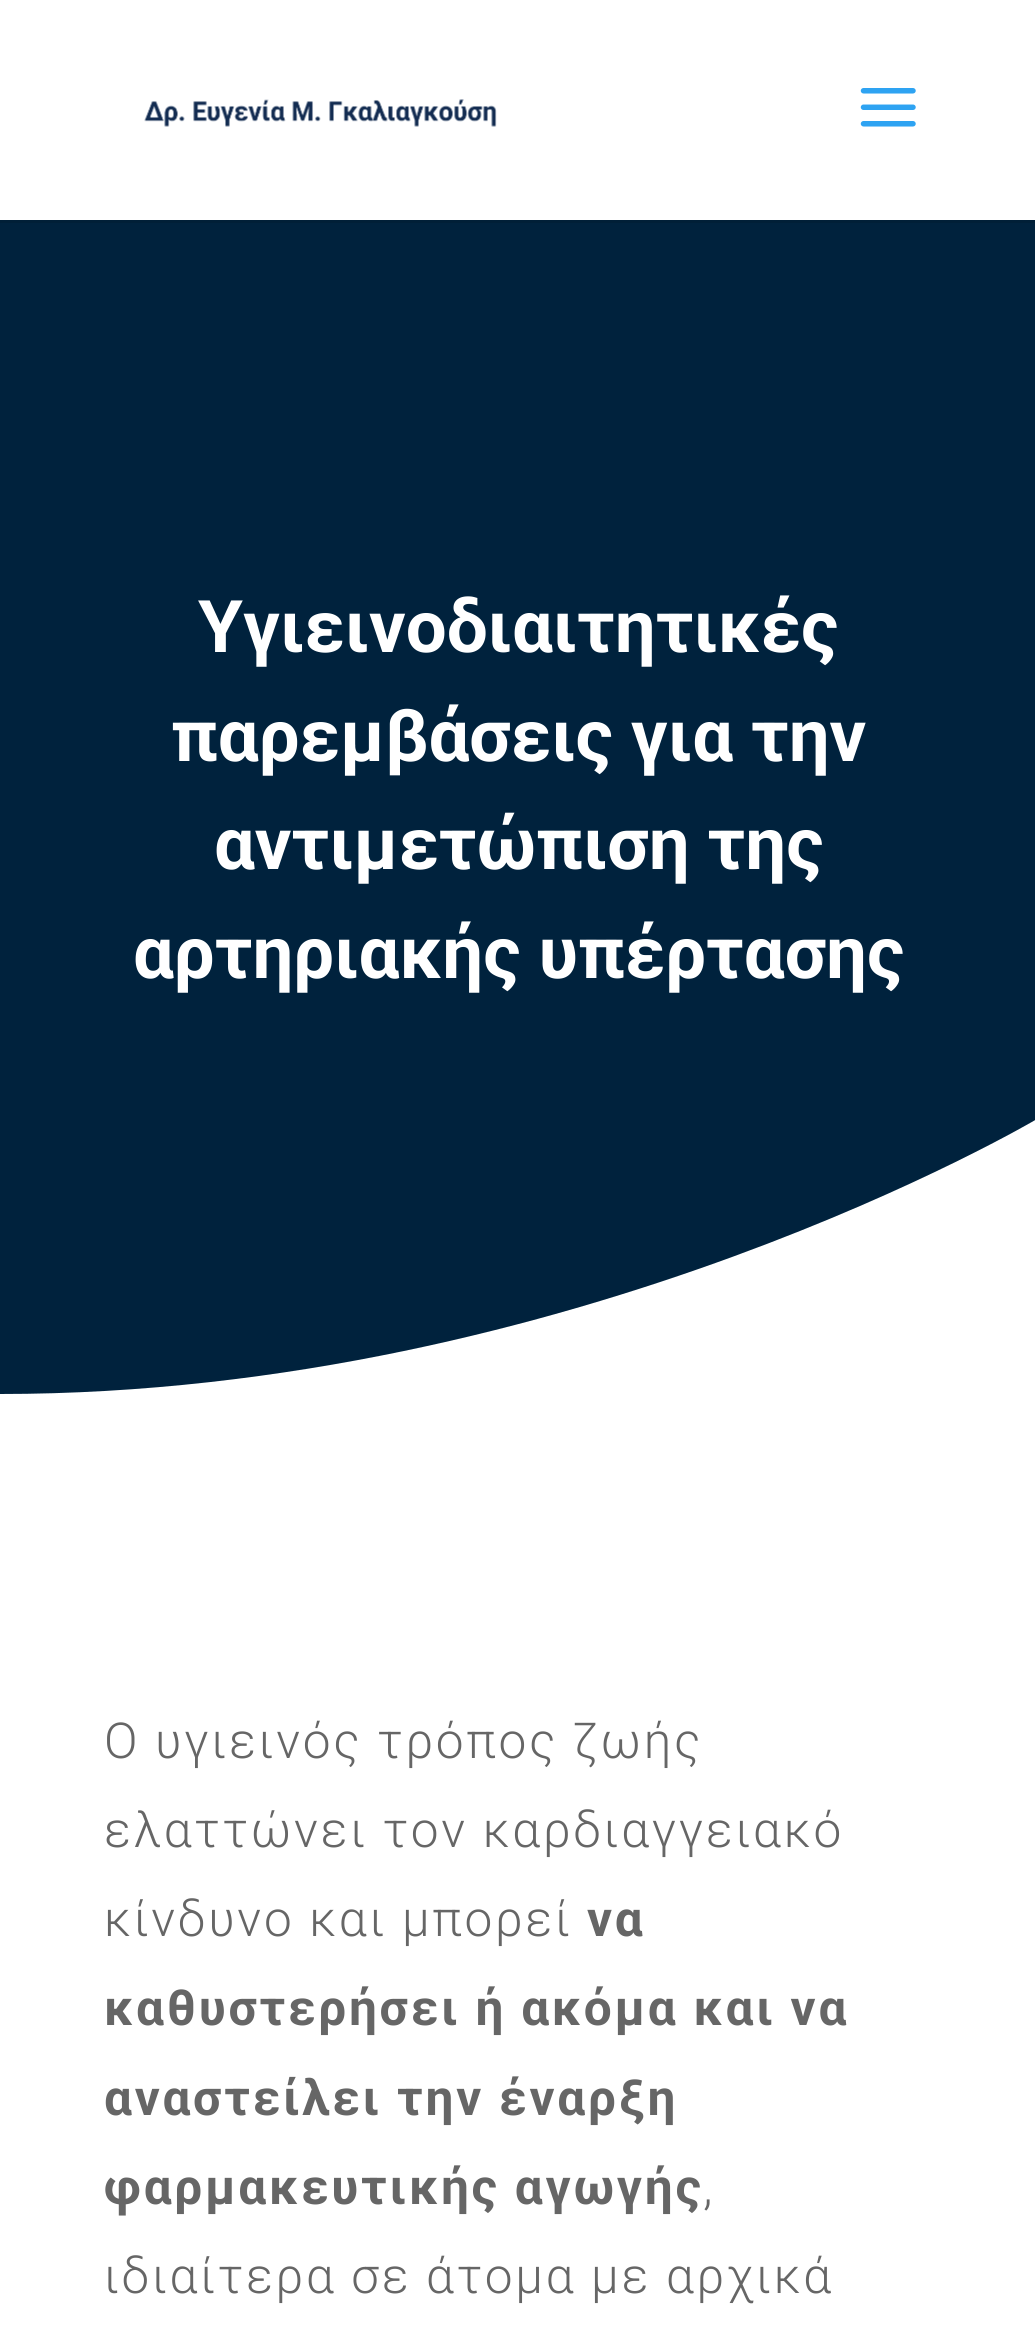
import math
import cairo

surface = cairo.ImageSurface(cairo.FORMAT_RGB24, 1035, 2328)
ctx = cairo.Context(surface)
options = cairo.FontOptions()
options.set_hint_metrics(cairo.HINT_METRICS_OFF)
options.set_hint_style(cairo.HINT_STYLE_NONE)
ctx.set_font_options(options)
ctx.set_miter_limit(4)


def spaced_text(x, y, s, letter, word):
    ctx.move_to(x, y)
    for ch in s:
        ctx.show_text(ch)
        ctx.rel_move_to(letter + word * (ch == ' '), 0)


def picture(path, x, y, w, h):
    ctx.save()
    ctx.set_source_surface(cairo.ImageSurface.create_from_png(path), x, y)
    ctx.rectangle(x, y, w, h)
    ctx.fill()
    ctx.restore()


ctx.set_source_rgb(1, 1, 1)
ctx.paint()
ctx.set_source_rgb(0, 0.122, 0.216)
ctx.new_path()
ctx.move_to(0, 220)
ctx.line_to(0, 223)
ctx.line_to(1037, 223)
ctx.line_to(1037, 3)
ctx.line_to(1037, 220)
ctx.close_path()
ctx.fill()
picture("img1.png", 144, 99, 353, 28)
picture("img2.png", 860, 88, 56, 39)
ctx.set_source_rgb(0, 0.133, 0.239)
ctx.rectangle(0, 223, 1035, 1171)
ctx.fill()
ctx.select_font_face("Roboto", cairo.FONT_SLANT_NORMAL, cairo.FONT_WEIGHT_BOLD)
ctx.set_font_size(72.5)
ctx.set_source_rgb(1, 1, 1)
ctx.move_to(198, 652)
ctx.show_text("Υγιεινοδιαιτητικές")
ctx.move_to(171, 761)
ctx.show_text("παρεμβάσεις για την")
ctx.move_to(214, 869)
ctx.show_text("αντιμετώπιση της")
ctx.move_to(133, 978)
ctx.show_text("αρτηριακής υπέρτασης")
ctx.new_path()
ctx.move_to(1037, 1394)
ctx.line_to(0, 1394)
ctx.curve_to(573, 1394, 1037, 1119, 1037, 1119)
ctx.close_path()
ctx.fill()
ctx.select_font_face("Roboto Light")
ctx.set_font_size(49.5)
ctx.set_source_rgb(0.4, 0.4, 0.4)
spaced_text(104, 1758, "Ο υγιεινός τρόπος ζωής", 2.75, 0)
spaced_text(104, 1847, "ελαττώνει τον καρδιαγγειακό", 2.75, 0)
spaced_text(104, 1936, "κίνδυνο και μπορεί", 2.75, 0)
ctx.select_font_face("Roboto", cairo.FONT_SLANT_NORMAL, cairo.FONT_WEIGHT_BOLD)
spaced_text(587, 1936, "να", 2.75, 0)
spaced_text(104, 2025, "καθυστερήσει ή ακόμα και να", 2.75, 0)
spaced_text(104, 2115, "αναστείλει την έναρξη", 2.75, 0)
spaced_text(104, 2204, "φαρμακευτικής αγωγής", 2.75, 0)
ctx.select_font_face("Roboto Light")
spaced_text(703, 2204, ",", 2.75, 0)
spaced_text(104, 2293, "ιδιαίτερα σε άτομα με αρχικά", 2.75, 0)
surface.write_to_png("page.png")
